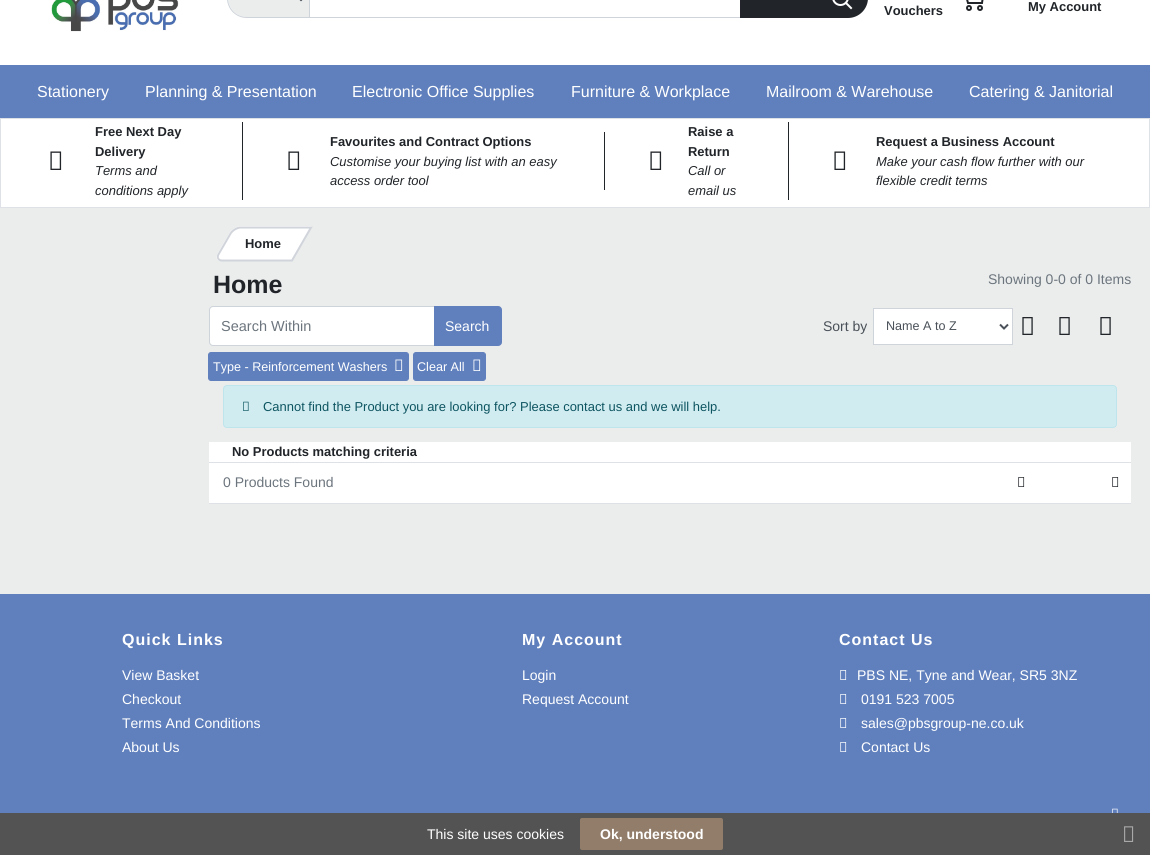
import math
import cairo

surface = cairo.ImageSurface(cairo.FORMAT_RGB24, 1150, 855)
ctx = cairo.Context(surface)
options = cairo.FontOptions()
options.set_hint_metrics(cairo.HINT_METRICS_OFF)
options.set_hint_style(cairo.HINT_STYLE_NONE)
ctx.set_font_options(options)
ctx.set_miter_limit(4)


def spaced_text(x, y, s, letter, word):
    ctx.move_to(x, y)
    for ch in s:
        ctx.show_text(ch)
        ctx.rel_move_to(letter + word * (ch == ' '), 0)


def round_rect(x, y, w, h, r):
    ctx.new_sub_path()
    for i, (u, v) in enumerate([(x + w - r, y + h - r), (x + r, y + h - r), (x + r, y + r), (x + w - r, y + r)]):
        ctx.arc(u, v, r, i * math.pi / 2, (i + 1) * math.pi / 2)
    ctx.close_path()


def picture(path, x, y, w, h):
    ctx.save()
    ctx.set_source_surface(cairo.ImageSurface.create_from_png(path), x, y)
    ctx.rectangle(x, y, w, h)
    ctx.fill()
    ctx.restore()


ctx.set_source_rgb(0.918, 0.929, 0.929)
ctx.paint()
ctx.set_source_rgb(1, 1, 1)
ctx.rectangle(0, 0, 1150, 65)
ctx.fill()
picture("img1.png", 51, 0, 128, 32)
ctx.set_source_rgb(0.918, 0.929, 0.929)
ctx.new_path()
ctx.move_to(247, -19)
ctx.line_to(308.5, -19)
ctx.curve_to(309, -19, 309, -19, 309, -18.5)
ctx.line_to(309, 16.5)
ctx.curve_to(309, 17, 309, 17, 308.5, 17)
ctx.line_to(247, 17)
ctx.curve_to(236.5, 17, 228, 8.5, 228, -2)
ctx.line_to(228, 0)
ctx.curve_to(228, -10.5, 236.5, -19, 247, -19)
ctx.close_path()
ctx.fill()
ctx.new_path()
ctx.move_to(247, -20.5)
ctx.line_to(308.5, -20.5)
ctx.curve_to(309, -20.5, 309.5, -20, 309.5, -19.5)
ctx.line_to(309.5, 16.5)
ctx.curve_to(309.5, 17, 309, 17.5, 308.5, 17.5)
ctx.line_to(247, 17.5)
ctx.curve_to(236, 17.5, 227.5, 9, 227.5, -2)
ctx.line_to(227.5, -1)
ctx.curve_to(227.5, -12, 236, -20.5, 247, -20.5)
ctx.close_path()
ctx.set_source_rgb(0.808, 0.831, 0.855)
ctx.set_line_width(1)
ctx.stroke()
ctx.new_path()
ctx.move_to(297, -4)
ctx.line_to(301, 0)
ctx.line_to(305, -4)
ctx.set_source_rgb(0.286, 0.314, 0.341)
ctx.set_line_width(2)
ctx.stroke()
ctx.rectangle(309.5, -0.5, 431, 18)
ctx.set_source_rgb(0.808, 0.831, 0.855)
ctx.set_line_width(1)
ctx.stroke()
ctx.set_source_rgb(0.129, 0.145, 0.161)
ctx.new_path()
ctx.move_to(740, -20)
ctx.line_to(848, -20)
ctx.curve_to(859, -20, 868, -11, 868, 0)
ctx.line_to(868, -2)
ctx.curve_to(868, 9, 859, 18, 848, 18)
ctx.line_to(740, 18)
ctx.close_path()
ctx.fill()
ctx.new_path()
ctx.move_to(851, 8)
ctx.line_to(846, 3)
ctx.set_source_rgb(1, 1, 1)
ctx.set_line_width(2)
ctx.set_line_cap(cairo.LINE_CAP_SQUARE)
ctx.stroke()
ctx.arc(840.5, -2.5, 7.5, 0, 2 * math.pi)
ctx.set_line_cap(cairo.LINE_CAP_BUTT)
ctx.stroke()
ctx.select_font_face("Liberation Sans", cairo.FONT_SLANT_NORMAL, cairo.FONT_WEIGHT_BOLD)
ctx.set_font_size(12.95)
ctx.set_source_rgb(0.129, 0.145, 0.161)
ctx.move_to(884, 15)
ctx.show_text("Vouchers")
ctx.new_path()
ctx.move_to(965.5, -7)
ctx.line_to(983.5, -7)
ctx.line_to(982, 3)
ctx.line_to(968, 3)
ctx.line_to(964, -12)
ctx.line_to(958, -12)
ctx.stroke()
ctx.arc(969, 8, 2, 0, 2 * math.pi)
ctx.stroke()
ctx.arc(980, 8, 2, 0, 2 * math.pi)
ctx.stroke()
ctx.move_to(1028, 11)
ctx.show_text("My Account")
ctx.set_source_rgb(0.376, 0.502, 0.741)
ctx.rectangle(0, 65, 1150, 53)
ctx.fill()
ctx.select_font_face("Liberation Sans")
ctx.set_font_size(16)
ctx.set_source_rgb(1, 1, 1)
ctx.move_to(37, 97)
ctx.show_text("Stationery")
ctx.move_to(145, 97)
ctx.show_text("Planning & Presentation")
ctx.move_to(352, 97)
ctx.show_text("Electronic Office Supplies")
ctx.move_to(571, 97)
ctx.show_text("Furniture & Workplace")
ctx.move_to(766, 97)
ctx.show_text("Mailroom & Warehouse")
ctx.move_to(969, 97)
ctx.show_text("Catering & Janitorial")
ctx.rectangle(0.5, 118.5, 1149, 89)
ctx.fill_preserve()
ctx.set_source_rgb(0.871, 0.886, 0.902)
ctx.set_line_width(1)
ctx.stroke()
ctx.set_source_rgb(0.129, 0.145, 0.161)
ctx.rectangle(242, 122, 1, 78)
ctx.fill()
picture("img2.png", 50, 151, 12, 19)
ctx.select_font_face("Liberation Sans", cairo.FONT_SLANT_NORMAL, cairo.FONT_WEIGHT_BOLD)
ctx.set_font_size(12.95)
ctx.move_to(95, 136)
ctx.show_text("Free Next Day")
ctx.move_to(95, 156)
ctx.show_text("Delivery")
ctx.select_font_face("Liberation Sans", cairo.FONT_SLANT_ITALIC)
ctx.move_to(95, 175)
ctx.show_text("Terms and")
ctx.move_to(95, 195)
ctx.show_text("conditions apply")
ctx.rectangle(604, 132, 1, 58)
ctx.fill()
picture("img2.png", 288, 151, 12, 19)
ctx.select_font_face("Liberation Sans", cairo.FONT_SLANT_NORMAL, cairo.FONT_WEIGHT_BOLD)
ctx.move_to(330, 146)
ctx.show_text("Favourites and Contract Options")
ctx.select_font_face("Liberation Sans", cairo.FONT_SLANT_ITALIC)
ctx.move_to(330, 166)
ctx.show_text("Customise your buying list with an easy")
ctx.move_to(330, 185)
ctx.show_text("access order tool")
ctx.rectangle(788, 122, 1, 78)
ctx.fill()
picture("img2.png", 650, 151, 12, 19)
ctx.select_font_face("Liberation Sans", cairo.FONT_SLANT_NORMAL, cairo.FONT_WEIGHT_BOLD)
ctx.move_to(688, 136)
ctx.show_text("Raise a")
ctx.move_to(688, 156)
ctx.show_text("Return")
ctx.select_font_face("Liberation Sans", cairo.FONT_SLANT_ITALIC)
ctx.move_to(688, 175)
ctx.show_text("Call or")
ctx.move_to(688, 195)
ctx.show_text("email us")
picture("img2.png", 834, 151, 12, 19)
ctx.select_font_face("Liberation Sans", cairo.FONT_SLANT_NORMAL, cairo.FONT_WEIGHT_BOLD)
ctx.move_to(876, 146)
ctx.show_text("Request a Business Account")
ctx.select_font_face("Liberation Sans", cairo.FONT_SLANT_ITALIC)
ctx.move_to(876, 166)
ctx.show_text("Make your cash flow further with our")
ctx.move_to(876, 185)
ctx.show_text("flexible credit terms")
ctx.set_source_rgb(1, 1, 1)
ctx.new_path()
ctx.move_to(242, 226)
ctx.line_to(312, 226)
ctx.line_to(292, 261)
ctx.line_to(221, 261)
ctx.curve_to(217, 261, 215, 258, 218, 253)
ctx.line_to(229, 234)
ctx.curve_to(231, 230, 237, 226, 242, 226)
ctx.close_path()
ctx.fill()
ctx.new_path()
ctx.move_to(241, 227.5)
ctx.line_to(311, 227.5)
ctx.line_to(292, 260.5)
ctx.line_to(222, 260.5)
ctx.curve_to(218, 260.5, 216.5, 257, 219, 253.5)
ctx.line_to(230, 234.5)
ctx.curve_to(232, 230.5, 237, 227.5, 241, 227.5)
ctx.close_path()
ctx.set_source_rgb(0.82, 0.835, 0.859)
ctx.set_line_width(2)
ctx.stroke()
ctx.select_font_face("Liberation Sans", cairo.FONT_SLANT_NORMAL, cairo.FONT_WEIGHT_BOLD)
ctx.set_source_rgb(0.129, 0.145, 0.161)
ctx.move_to(245, 248)
ctx.show_text("Home")
ctx.set_font_size(25)
ctx.move_to(213, 293)
ctx.show_text("Home")
ctx.select_font_face("Liberation Sans")
ctx.set_font_size(14)
ctx.set_source_rgb(0.424, 0.459, 0.49)
ctx.move_to(988, 284)
ctx.show_text("Showing 0-0 of 0 Items")
ctx.set_source_rgb(1, 1, 1)
ctx.new_path()
ctx.move_to(212.5, 307)
ctx.line_to(434, 307)
ctx.line_to(434, 345)
ctx.line_to(212.5, 345)
ctx.curve_to(211, 345, 210, 344, 210, 342.5)
ctx.line_to(210, 309.5)
ctx.curve_to(210, 308, 211, 307, 212.5, 307)
ctx.close_path()
ctx.fill()
ctx.new_path()
ctx.move_to(213, 306.5)
ctx.line_to(434.5, 306.5)
ctx.line_to(434.5, 345.5)
ctx.line_to(213, 345.5)
ctx.curve_to(211, 345.5, 209.5, 344, 209.5, 342)
ctx.line_to(209.5, 310)
ctx.curve_to(209.5, 308, 211, 306.5, 213, 306.5)
ctx.close_path()
ctx.set_source_rgb(0.808, 0.831, 0.855)
ctx.set_line_width(1)
ctx.stroke()
ctx.set_font_size(14.5)
ctx.set_source_rgb(0.424, 0.459, 0.49)
ctx.move_to(221, 331)
ctx.show_text("Search Within")
ctx.set_source_rgb(0.376, 0.502, 0.741)
ctx.new_path()
ctx.move_to(434.5, 306.5)
ctx.line_to(498, 306.5)
ctx.curve_to(500, 306.5, 501.5, 308, 501.5, 310)
ctx.line_to(501.5, 342)
ctx.curve_to(501.5, 344, 500, 345.5, 498, 345.5)
ctx.line_to(434.5, 345.5)
ctx.close_path()
ctx.fill_preserve()
ctx.stroke()
ctx.set_font_size(14)
ctx.set_source_rgb(1, 1, 1)
ctx.move_to(445, 331)
ctx.show_text("Search")
ctx.set_source_rgb(0.286, 0.314, 0.341)
ctx.move_to(823, 331)
ctx.show_text("Sort by")
ctx.set_source_rgb(1, 1, 1)
ctx.rectangle(873.5, 308.5, 139, 36)
ctx.fill_preserve()
ctx.set_source_rgb(0.808, 0.831, 0.855)
ctx.stroke()
ctx.new_path()
ctx.move_to(1000, 324.5)
ctx.line_to(1004, 328.5)
ctx.line_to(1008, 324.5)
ctx.set_source_rgb(0.286, 0.314, 0.341)
ctx.set_line_width(2)
ctx.stroke()
ctx.set_font_size(12.6)
ctx.move_to(886, 330)
ctx.show_text("Name A to Z")
picture("img3.png", 1022, 317, 11, 18)
picture("img3.png", 1059, 317, 11, 18)
picture("img3.png", 1100, 317, 11, 18)
ctx.set_source_rgb(0.376, 0.502, 0.741)
round_rect(208.5, 352.5, 200, 28, 2.5)
ctx.fill_preserve()
ctx.set_line_width(1)
ctx.stroke()
ctx.set_source_rgb(1, 1, 1)
ctx.move_to(213, 371)
ctx.show_text("Type - Reinforcement Washers")
picture("img4.png", 395, 359, 8, 12)
ctx.set_source_rgb(0.376, 0.502, 0.741)
round_rect(413.5, 352.5, 72, 28, 2.5)
ctx.fill_preserve()
ctx.stroke()
ctx.set_source_rgb(1, 1, 1)
ctx.move_to(417, 371)
ctx.show_text("Clear All")
picture("img4.png", 473, 359, 8, 12)
ctx.set_source_rgb(0.82, 0.925, 0.945)
round_rect(223.5, 385.5, 893, 42, 3.5)
ctx.fill_preserve()
ctx.set_source_rgb(0.745, 0.898, 0.922)
ctx.stroke()
picture("img5.png", 243, 401, 6, 10)
ctx.set_font_size(12.95)
ctx.set_source_rgb(0.047, 0.329, 0.376)
ctx.move_to(263, 411)
ctx.show_text("Cannot find the Product you are looking for? Please contact us and we will help.")
ctx.set_source_rgb(1, 1, 1)
ctx.rectangle(209, 442, 922, 20)
ctx.fill()
ctx.select_font_face("Liberation Sans", cairo.FONT_SLANT_NORMAL, cairo.FONT_WEIGHT_BOLD)
ctx.set_source_rgb(0.129, 0.145, 0.161)
ctx.move_to(232, 456)
ctx.show_text("No Products matching criteria")
ctx.set_source_rgb(1, 1, 1)
ctx.rectangle(209, 463, 922, 40)
ctx.fill()
ctx.set_source_rgb(0.871, 0.886, 0.902)
ctx.rectangle(209, 462, 922, 1)
ctx.fill()
ctx.rectangle(209, 503, 922, 1)
ctx.fill()
ctx.select_font_face("Liberation Sans")
ctx.set_font_size(14)
ctx.set_source_rgb(0.424, 0.459, 0.49)
ctx.move_to(223, 487)
ctx.show_text("0 Products Found")
picture("img6.png", 1018, 477, 7, 10)
picture("img6.png", 1112, 477, 7, 10)
ctx.set_source_rgb(0.376, 0.502, 0.741)
ctx.rectangle(0, 594, 1150, 219)
ctx.fill()
ctx.select_font_face("Liberation Sans", cairo.FONT_SLANT_NORMAL, cairo.FONT_WEIGHT_BOLD)
ctx.set_font_size(16)
ctx.set_source_rgb(1, 1, 1)
spaced_text(122, 645, "Quick Links", 1, 0)
ctx.select_font_face("Liberation Sans")
ctx.set_font_size(14)
ctx.move_to(122, 680)
ctx.show_text("View Basket")
ctx.move_to(122, 704)
ctx.show_text("Checkout")
ctx.move_to(122, 728)
ctx.show_text("Terms And Conditions")
ctx.move_to(122, 752)
ctx.show_text("About Us")
ctx.select_font_face("Liberation Sans", cairo.FONT_SLANT_NORMAL, cairo.FONT_WEIGHT_BOLD)
ctx.set_font_size(16)
spaced_text(522, 645, "My Account", 1, 0)
ctx.select_font_face("Liberation Sans")
ctx.set_font_size(14)
ctx.move_to(522, 680)
ctx.show_text("Login")
ctx.move_to(522, 704)
ctx.show_text("Request Account")
ctx.select_font_face("Liberation Sans", cairo.FONT_SLANT_NORMAL, cairo.FONT_WEIGHT_BOLD)
ctx.set_font_size(16)
spaced_text(839, 645, "Contact Us", 1, 0)
picture("img7.png", 840, 670, 7, 10)
ctx.select_font_face("Liberation Sans")
ctx.set_font_size(14)
ctx.move_to(857, 680)
ctx.show_text("PBS NE, Tyne and Wear, SR5 3NZ")
picture("img7.png", 840, 694, 7, 10)
ctx.move_to(861, 704)
ctx.show_text("0191 523 7005")
picture("img7.png", 840, 718, 7, 10)
ctx.move_to(861, 728)
ctx.show_text("sales@pbsgroup-ne.co.uk")
picture("img7.png", 840, 742, 7, 10)
ctx.move_to(861, 752)
ctx.show_text("Contact Us")
picture("img8.png", 1112, 808, 6, 5)
ctx.set_source_rgb(0.325, 0.325, 0.325)
ctx.rectangle(0, 813, 1150, 42)
ctx.fill()
ctx.set_source_rgb(1, 1, 1)
ctx.move_to(427, 839)
ctx.show_text("This site uses cookies")
ctx.set_source_rgb(0.573, 0.49, 0.416)
round_rect(580, 818, 143, 32, 2)
ctx.fill()
ctx.select_font_face("Liberation Sans", cairo.FONT_SLANT_NORMAL, cairo.FONT_WEIGHT_BOLD)
ctx.set_source_rgb(1, 1, 1)
ctx.move_to(600, 839)
ctx.show_text("Ok, understood")
picture("img9.png", 1124, 826, 10, 16)
surface.write_to_png("page.png")
